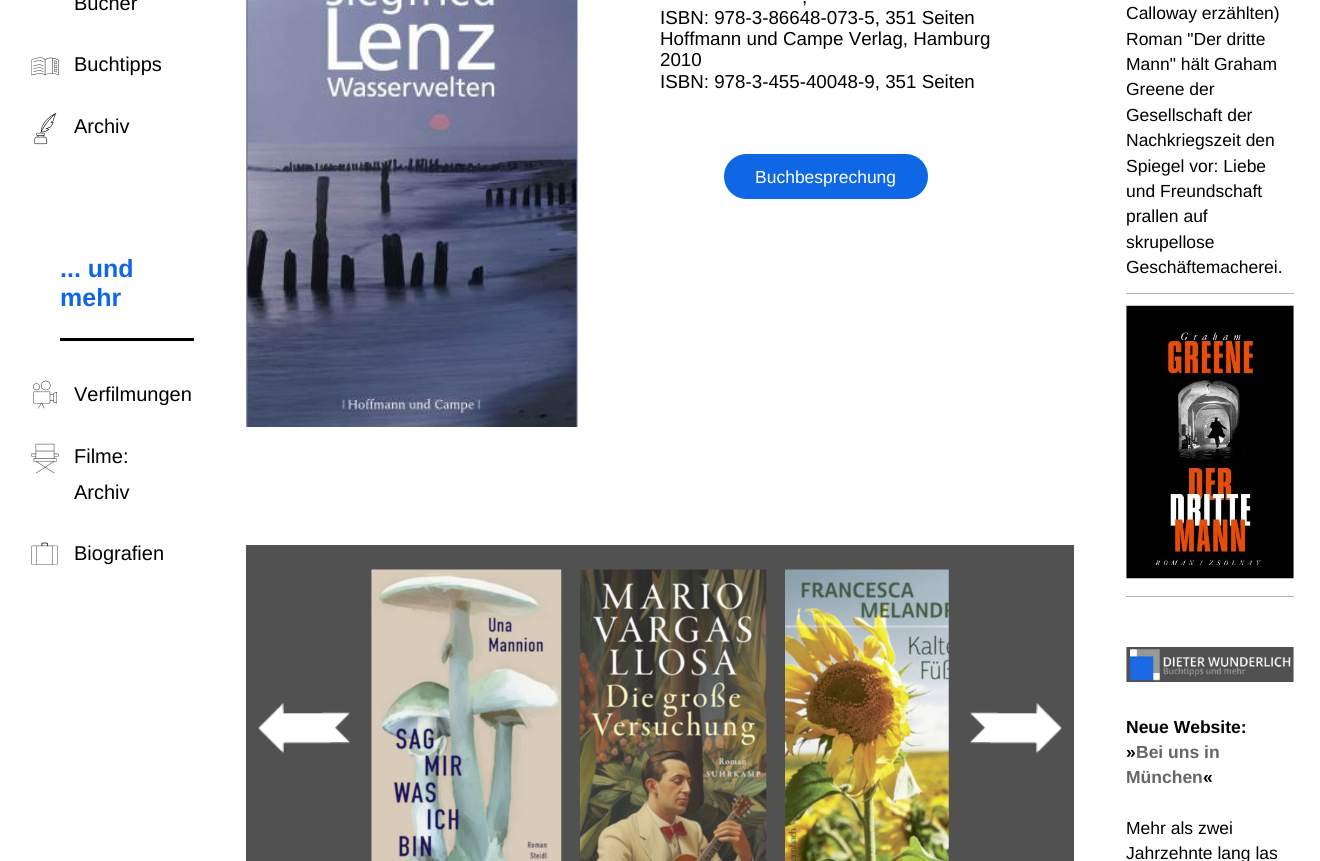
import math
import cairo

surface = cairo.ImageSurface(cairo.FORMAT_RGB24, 1320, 861)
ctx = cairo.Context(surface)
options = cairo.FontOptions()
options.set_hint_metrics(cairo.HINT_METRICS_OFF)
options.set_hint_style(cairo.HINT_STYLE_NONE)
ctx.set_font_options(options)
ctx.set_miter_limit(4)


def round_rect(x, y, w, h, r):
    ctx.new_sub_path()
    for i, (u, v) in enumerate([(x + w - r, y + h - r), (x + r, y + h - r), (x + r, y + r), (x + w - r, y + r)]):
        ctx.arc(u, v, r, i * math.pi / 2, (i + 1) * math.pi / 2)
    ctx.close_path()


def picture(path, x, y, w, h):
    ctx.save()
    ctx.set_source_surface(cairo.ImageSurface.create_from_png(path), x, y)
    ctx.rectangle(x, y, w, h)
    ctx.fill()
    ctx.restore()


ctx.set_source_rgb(1, 1, 1)
ctx.paint()
ctx.select_font_face("Liberation Sans")
ctx.set_font_size(20)
ctx.set_source_rgb(0, 0, 0)
ctx.move_to(74, 10)
ctx.show_text("Bücher")
picture("img1.png", 31, 57, 28, 19)
ctx.move_to(74, 71)
ctx.show_text("Buchtipps")
picture("img2.png", 34, 112, 23, 33)
ctx.move_to(74, 133)
ctx.show_text("Archiv")
ctx.rectangle(60, 338, 134, 3)
ctx.fill()
ctx.select_font_face("Liberation Sans", cairo.FONT_SLANT_NORMAL, cairo.FONT_WEIGHT_BOLD)
ctx.set_font_size(25)
ctx.set_source_rgb(0.059, 0.404, 0.898)
ctx.move_to(60, 277)
ctx.show_text("... und")
ctx.move_to(60, 306)
ctx.show_text("mehr")
picture("img3.png", 33, 380, 24, 29)
ctx.select_font_face("Liberation Sans")
ctx.set_font_size(20)
ctx.set_source_rgb(0, 0, 0)
ctx.move_to(74, 401)
ctx.show_text("Verfilmungen")
picture("img4.png", 31, 443, 28, 31)
ctx.move_to(74, 463)
ctx.show_text("Filme:")
ctx.move_to(74, 499)
ctx.show_text("Archiv")
picture("img5.png", 31, 542, 27, 23)
ctx.move_to(74, 560)
ctx.show_text("Biografien")
picture("img6.png", 246, 0, 332, 427)
ctx.set_font_size(18.75)
ctx.move_to(802, 3)
ctx.show_text(",")
ctx.move_to(660, 24)
ctx.show_text("ISBN: 978-3-86648-073-5, 351 Seiten")
ctx.move_to(660, 45)
ctx.show_text("Hoffmann und Campe Verlag, Hamburg")
ctx.move_to(660, 66)
ctx.show_text("2010")
ctx.move_to(660, 88)
ctx.show_text("ISBN: 978-3-455-40048-9, 351 Seiten")
ctx.set_source_rgb(0.059, 0.404, 0.898)
round_rect(724, 154, 204, 45, 22.5)
ctx.fill()
ctx.set_font_size(17.5)
ctx.set_source_rgb(1, 1, 1)
ctx.move_to(755, 183)
ctx.show_text("Buchbesprechung")
ctx.set_source_rgb(0.318, 0.318, 0.318)
ctx.rectangle(246, 545, 828, 316)
ctx.fill()
picture("img7.png", 258, 703, 92, 51)
picture("img8.png", 371, 569, 191, 292)
picture("img9.png", 580, 569, 187, 292)
picture("img10.png", 785, 569, 164, 292)
picture("img11.png", 970, 703, 92, 51)
ctx.set_source_rgb(0.702, 0.702, 0.702)
ctx.rectangle(1126, 596, 168, 1)
ctx.fill()
ctx.rectangle(1126, 293, 168, 1)
ctx.fill()
ctx.set_source_rgb(0, 0, 0)
ctx.move_to(1126, 19)
ctx.show_text("Calloway erzählten)")
ctx.move_to(1126, 45)
ctx.show_text("Roman \"Der dritte")
ctx.move_to(1126, 70)
ctx.show_text("Mann\" hält Graham")
ctx.move_to(1126, 95)
ctx.show_text("Greene der")
ctx.move_to(1126, 121)
ctx.show_text("Gesellschaft der")
ctx.move_to(1126, 146)
ctx.show_text("Nachkriegszeit den")
ctx.move_to(1126, 172)
ctx.show_text("Spiegel vor: Liebe")
ctx.move_to(1126, 197)
ctx.show_text("und Freundschaft")
ctx.move_to(1126, 222)
ctx.show_text("prallen auf")
ctx.move_to(1126, 248)
ctx.show_text("skrupellose")
ctx.move_to(1126, 273)
ctx.show_text("Geschäftemacherei.")
picture("img12.png", 1126, 305, 168, 274)
picture("img13.png", 1126, 647, 168, 35)
ctx.select_font_face("Liberation Sans", cairo.FONT_SLANT_NORMAL, cairo.FONT_WEIGHT_BOLD)
ctx.move_to(1126, 733)
ctx.show_text("Neue Website:")
ctx.move_to(1126, 758)
ctx.show_text("»")
ctx.set_source_rgb(0.4, 0.4, 0.4)
ctx.move_to(1136, 758)
ctx.show_text("Bei uns in")
ctx.move_to(1126, 783)
ctx.show_text("München")
ctx.set_source_rgb(0, 0, 0)
ctx.move_to(1203, 783)
ctx.show_text("«")
ctx.select_font_face("Liberation Sans")
ctx.move_to(1126, 834)
ctx.show_text("Mehr als zwei")
ctx.move_to(1126, 859)
ctx.show_text("Jahrzehnte lang las")
surface.write_to_png("page.png")
